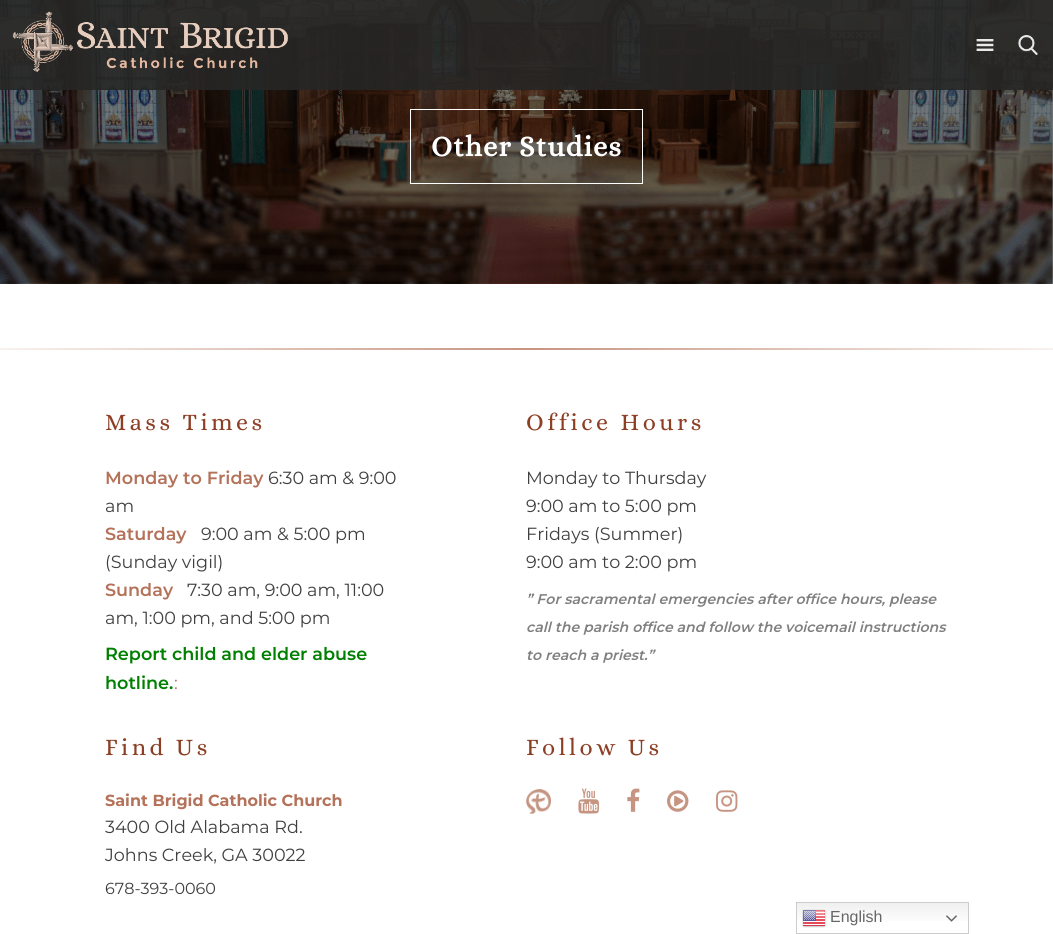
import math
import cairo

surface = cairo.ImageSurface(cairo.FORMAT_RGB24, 1053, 934)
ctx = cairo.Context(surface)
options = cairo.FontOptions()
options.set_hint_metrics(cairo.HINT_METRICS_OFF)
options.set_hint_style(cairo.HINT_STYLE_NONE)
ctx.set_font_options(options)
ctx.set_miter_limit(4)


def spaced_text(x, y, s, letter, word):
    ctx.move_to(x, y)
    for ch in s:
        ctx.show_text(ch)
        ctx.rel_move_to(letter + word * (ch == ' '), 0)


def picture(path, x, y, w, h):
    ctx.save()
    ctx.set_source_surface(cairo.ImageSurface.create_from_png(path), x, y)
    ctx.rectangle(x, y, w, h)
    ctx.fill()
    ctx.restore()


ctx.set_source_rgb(1, 1, 1)
ctx.paint()
picture("img4.png", 0, 0, 1053, 284)
ctx.set_source_rgba(0.149, 0.149, 0.145, 0.9)
ctx.rectangle(0, 0, 1053, 90)
ctx.fill()
picture("img1.png", 12, 11, 276, 61)
picture("img2.png", 976, 39, 18, 12)
picture("img3.png", 1018, 35, 20, 20)
ctx.rectangle(410.5, 109.5, 232, 74)
ctx.set_source_rgb(1, 1, 1)
ctx.set_line_width(1)
ctx.stroke()
ctx.select_font_face("Alice", cairo.FONT_SLANT_NORMAL, cairo.FONT_WEIGHT_BOLD)
ctx.set_font_size(28.75)
spaced_text(431, 156, "Other Studies", 1, 0)
gradient = cairo.RadialGradient(527, 349, 0, 527, 349, 600)
gradient.add_color_stop_rgba(0, 0.78, 0.584, 0.502, 1)
gradient.add_color_stop_rgba(1, 1, 1, 1, 1)
ctx.set_source(gradient)
ctx.rectangle(0, 348, 1053, 2)
ctx.fill()
ctx.select_font_face("Alice")
ctx.set_font_size(24)
ctx.set_source_rgb(0.549, 0.247, 0.145)
spaced_text(105, 430, "Mass Times", 3.5, 0)
ctx.select_font_face("Montserrat SemiBold")
ctx.set_font_size(17.6)
ctx.set_source_rgb(0.702, 0.447, 0.349)
ctx.move_to(105, 484)
ctx.show_text("Monday to Friday")
ctx.select_font_face("Montserrat")
ctx.set_source_rgb(0.251, 0.251, 0.251)
ctx.move_to(268, 484)
ctx.show_text("6:30 am & 9:00")
ctx.move_to(105, 512)
ctx.show_text("am")
ctx.select_font_face("Montserrat SemiBold")
ctx.set_source_rgb(0.702, 0.447, 0.349)
ctx.move_to(105, 540)
ctx.show_text("Saturday")
ctx.select_font_face("Montserrat")
ctx.set_source_rgb(0.251, 0.251, 0.251)
ctx.move_to(201, 540)
ctx.show_text("9:00 am & 5:00 pm")
ctx.move_to(105, 568)
ctx.show_text("(Sunday vigil)")
ctx.select_font_face("Montserrat SemiBold")
ctx.set_source_rgb(0.702, 0.447, 0.349)
ctx.move_to(105, 596)
ctx.show_text("Sunday")
ctx.select_font_face("Montserrat")
ctx.set_source_rgb(0.251, 0.251, 0.251)
ctx.move_to(187, 596)
ctx.show_text("7:30 am, 9:00 am, 11:00")
ctx.move_to(105, 624)
ctx.show_text("am, 1:00 pm, and 5:00 pm")
ctx.select_font_face("Montserrat SemiBold")
ctx.set_source_rgb(0, 0.502, 0)
ctx.move_to(105, 660)
ctx.show_text("Report child and elder abuse")
ctx.move_to(105, 689)
ctx.show_text("hotline.")
ctx.select_font_face("Montserrat")
ctx.set_source_rgb(0.702, 0.447, 0.349)
ctx.move_to(174, 689)
ctx.show_text(":")
ctx.select_font_face("Alice")
ctx.set_font_size(24)
ctx.set_source_rgb(0.549, 0.247, 0.145)
spaced_text(526, 430, "Office Hours", 3.5, 0)
ctx.select_font_face("Montserrat")
ctx.set_font_size(17.6)
ctx.set_source_rgb(0.251, 0.251, 0.251)
ctx.move_to(526, 484)
ctx.show_text("Monday to Thursday")
ctx.move_to(526, 512)
ctx.show_text("9:00 am to 5:00 pm")
ctx.move_to(526, 540)
ctx.show_text("Fridays (Summer)")
ctx.move_to(526, 568)
ctx.show_text("9:00 am to 2:00 pm")
ctx.select_font_face("Montserrat SemiBold", cairo.FONT_SLANT_ITALIC)
ctx.set_font_size(14.1)
ctx.set_source_rgb(0.502, 0.502, 0.502)
ctx.move_to(526, 604)
ctx.show_text("” For sacramental emergencies after office hours, please")
ctx.move_to(526, 632)
ctx.show_text("call the parish office and follow the voicemail instructions")
ctx.move_to(526, 660)
ctx.show_text("to reach a priest.”")
ctx.select_font_face("Alice")
ctx.set_font_size(24)
ctx.set_source_rgb(0.549, 0.247, 0.145)
spaced_text(105, 755, "Find Us", 3.5, 0)
ctx.select_font_face("Montserrat", cairo.FONT_SLANT_NORMAL, cairo.FONT_WEIGHT_BOLD)
ctx.set_font_size(16)
ctx.set_source_rgb(0.702, 0.447, 0.349)
ctx.move_to(105, 806)
ctx.show_text("Saint Brigid Catholic Church")
ctx.select_font_face("Montserrat")
ctx.set_font_size(17.6)
ctx.set_source_rgb(0.251, 0.251, 0.251)
ctx.move_to(105, 833)
ctx.show_text("3400 Old Alabama Rd.")
ctx.move_to(105, 861)
ctx.show_text("Johns Creek, GA 30022")
ctx.set_font_size(16)
ctx.move_to(105, 894)
ctx.show_text("678-393-0060")
ctx.select_font_face("Alice")
ctx.set_font_size(24)
ctx.set_source_rgb(0.549, 0.247, 0.145)
spaced_text(526, 755, "Follow Us", 3.5, 0)
picture("img5.png", 526, 789, 25, 25)
picture("img6.png", 578, 788, 22, 26)
picture("img7.png", 627, 788, 13, 24)
picture("img8.png", 667, 790, 22, 22)
picture("img9.png", 716, 790, 22, 22)
gradient = cairo.LinearGradient(883, 902, 883, 934)
gradient.add_color_stop_rgba(0, 0.937, 0.937, 0.937, 1)
gradient.add_color_stop_rgba(0.7, 1, 1, 1, 1)
ctx.set_source(gradient)
ctx.rectangle(797, 903, 171, 18)
ctx.fill()
ctx.rectangle(796.5, 902.5, 172, 31)
ctx.set_source_rgb(0.8, 0.8, 0.8)
ctx.stroke()
picture("img10.png", 802, 909, 24, 19)
ctx.select_font_face("Liberation Sans")
ctx.set_font_size(16)
ctx.set_source_rgb(0.4, 0.4, 0.4)
ctx.move_to(830, 922)
ctx.show_text("English")
picture("img11.png", 946, 915, 11, 7)
surface.write_to_png("page.png")
